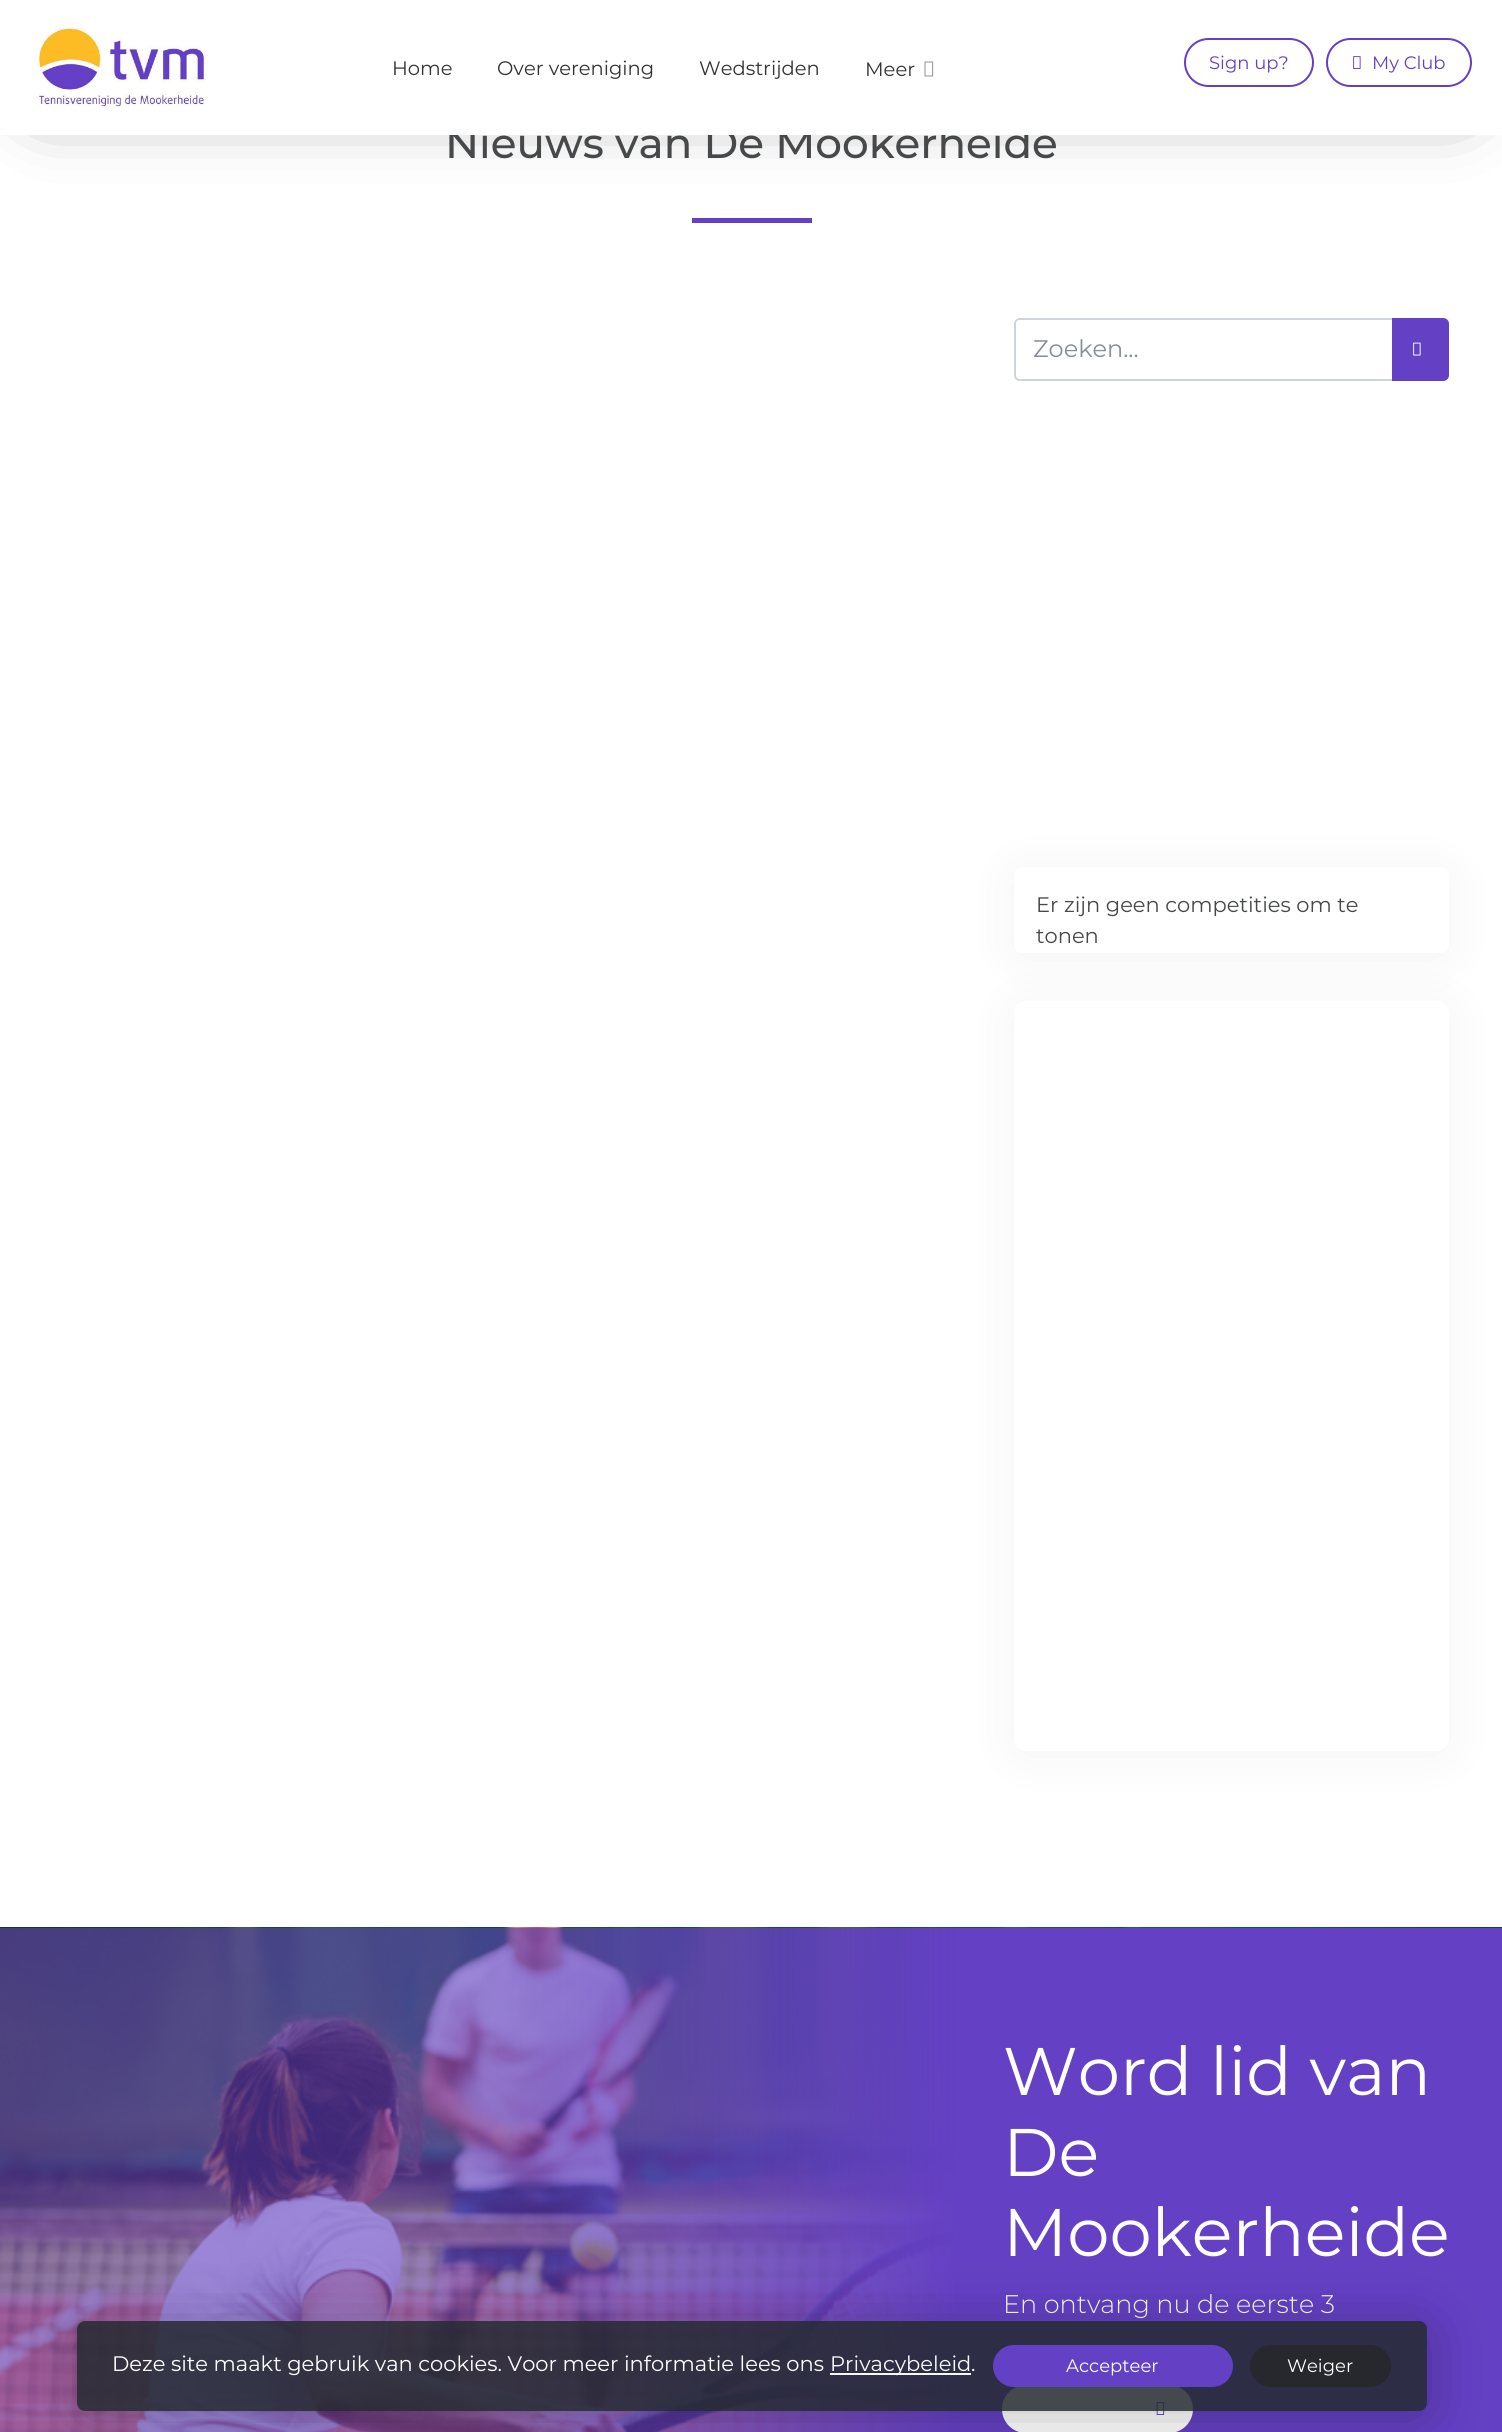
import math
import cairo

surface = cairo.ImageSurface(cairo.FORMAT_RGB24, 1502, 2432)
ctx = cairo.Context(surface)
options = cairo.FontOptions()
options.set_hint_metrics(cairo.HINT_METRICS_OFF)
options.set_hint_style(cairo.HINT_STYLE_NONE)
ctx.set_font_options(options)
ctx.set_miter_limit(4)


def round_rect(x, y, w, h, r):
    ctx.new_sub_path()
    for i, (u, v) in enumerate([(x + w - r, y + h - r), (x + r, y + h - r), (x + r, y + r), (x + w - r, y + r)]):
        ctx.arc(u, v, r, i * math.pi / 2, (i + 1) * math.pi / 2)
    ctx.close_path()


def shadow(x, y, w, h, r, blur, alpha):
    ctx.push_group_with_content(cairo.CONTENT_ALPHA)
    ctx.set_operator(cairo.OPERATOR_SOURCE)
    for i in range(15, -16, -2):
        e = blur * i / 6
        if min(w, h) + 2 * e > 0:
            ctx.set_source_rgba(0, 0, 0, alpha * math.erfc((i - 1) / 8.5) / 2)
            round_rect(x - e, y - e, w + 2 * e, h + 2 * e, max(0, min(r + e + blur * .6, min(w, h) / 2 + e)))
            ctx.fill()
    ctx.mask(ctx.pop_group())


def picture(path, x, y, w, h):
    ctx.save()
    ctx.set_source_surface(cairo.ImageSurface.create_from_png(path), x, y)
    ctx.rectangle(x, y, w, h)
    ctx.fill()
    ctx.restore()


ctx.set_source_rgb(1, 1, 1)
ctx.paint()
ctx.set_source_rgb(0, 0, 0)
shadow(45, 45, 1413, 45, 0, 37.5, 0.85)
ctx.select_font_face("Montserrat Medium")
ctx.set_font_size(42)
ctx.set_source_rgb(0.275, 0.282, 0.29)
ctx.move_to(445, 158)
ctx.show_text("Nieuws van De Mookerheide")
ctx.set_source_rgb(1, 1, 1)
ctx.rectangle(0, 0, 1502, 135)
ctx.fill()
picture("img1.png", 36, 27, 172, 81)
ctx.select_font_face("Montserrat")
ctx.set_font_size(19.5)
ctx.set_source_rgb(0.2, 0.2, 0.2)
ctx.move_to(392, 75)
ctx.show_text("Home")
ctx.move_to(497, 75)
ctx.show_text("Over vereniging")
ctx.move_to(699, 75)
ctx.show_text("Wedstrijden")
ctx.move_to(865, 76)
ctx.show_text("Meer")
picture("img2.png", 924, 61, 10, 16)
round_rect(1185, 39, 128, 47, 23.5)
ctx.set_source_rgb(0.392, 0.251, 0.769)
ctx.stroke()
ctx.set_font_size(18)
ctx.move_to(1209, 69)
ctx.show_text("Sign up?")
round_rect(1327, 39, 144, 47, 23.5)
ctx.stroke()
picture("img3.png", 1353, 56, 8, 13)
ctx.move_to(1372, 69)
ctx.show_text("My Club")
ctx.rectangle(692, 218, 120, 5)
ctx.fill()
ctx.new_path()
ctx.move_to(1020, 319)
ctx.line_to(1393, 319)
ctx.line_to(1393, 380)
ctx.line_to(1020, 380)
ctx.curve_to(1017, 380, 1015, 378, 1015, 375)
ctx.line_to(1015, 324)
ctx.curve_to(1015, 321, 1017, 319, 1020, 319)
ctx.close_path()
ctx.set_source_rgb(0.808, 0.831, 0.855)
ctx.stroke()
ctx.set_font_size(24)
ctx.set_source_rgb(0.525, 0.557, 0.588)
ctx.move_to(1033, 357)
ctx.show_text("Zoeken...")
ctx.set_source_rgb(0.392, 0.251, 0.769)
ctx.new_path()
ctx.move_to(1393, 319)
ctx.line_to(1443, 319)
ctx.curve_to(1446, 319, 1448, 321, 1448, 324)
ctx.line_to(1448, 375)
ctx.curve_to(1448, 378, 1446, 380, 1443, 380)
ctx.line_to(1393, 380)
ctx.close_path()
ctx.fill_preserve()
ctx.stroke()
picture("img4.png", 1413, 342, 8, 14)
ctx.set_source_rgb(0, 0, 0)
shadow(1014, 872, 435, 85, 8, 24, 0.05)
ctx.set_source_rgb(1, 1, 1)
round_rect(1014, 867, 435, 86, 8)
ctx.fill()
ctx.set_font_size(21)
ctx.set_source_rgb(0.275, 0.282, 0.29)
ctx.move_to(1036, 912)
ctx.show_text("Er zijn geen competities om te")
ctx.move_to(1036, 943)
ctx.show_text("tonen")
ctx.set_source_rgb(0, 0, 0)
shadow(1014, 1005, 435, 750, 12, 24, 0.05)
ctx.set_source_rgb(1, 1, 1)
round_rect(1014, 1001, 435, 750, 12)
ctx.fill()
picture("img5.png", 0, 1927, 1502, 505)
ctx.set_source_rgb(0.392, 0.251, 0.769)
ctx.rectangle(962, 1928, 540, 504)
ctx.fill()
ctx.set_font_size(67.25)
ctx.set_source_rgb(1, 1, 1)
ctx.move_to(1003, 2095)
ctx.show_text("Word lid van")
ctx.move_to(1003, 2176)
ctx.show_text("De")
ctx.move_to(1003, 2256)
ctx.show_text("Mookerheide")
ctx.select_font_face("Montserrat Light")
ctx.set_font_size(25.5)
ctx.move_to(1003, 2313)
ctx.show_text("En ontvang nu de eerste 3")
round_rect(1003, 2386, 189, 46, 23)
ctx.fill_preserve()
ctx.stroke()
picture("img6.png", 1156, 2402, 9, 13)
ctx.save()
ctx.set_fill_rule(cairo.FILL_RULE_EVEN_ODD)
ctx.new_path()
ctx.move_to(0, 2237)
ctx.line_to(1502, 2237)
ctx.line_to(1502, 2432)
ctx.line_to(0, 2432)
ctx.close_path()
ctx.move_to(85, 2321)
ctx.line_to(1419, 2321)
ctx.curve_to(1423.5, 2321, 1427, 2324.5, 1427, 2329)
ctx.line_to(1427, 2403)
ctx.curve_to(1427, 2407.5, 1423.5, 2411, 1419, 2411)
ctx.line_to(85, 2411)
ctx.curve_to(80.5, 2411, 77, 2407.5, 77, 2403)
ctx.line_to(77, 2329)
ctx.curve_to(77, 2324.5, 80.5, 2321, 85, 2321)
ctx.close_path()
ctx.clip()
ctx.set_source_rgb(0, 0, 0)
shadow(77, 2328, 1350, 90, 8, 30, 0.25)
ctx.restore()
ctx.set_source_rgba(0.141, 0.165, 0.188, 0.85)
round_rect(77, 2321, 1350, 90, 8)
ctx.fill()
ctx.select_font_face("Montserrat")
ctx.set_font_size(21)
ctx.set_source_rgb(1, 1, 1)
ctx.move_to(112, 2371)
ctx.show_text("Deze site maakt gebruik van cookies. Voor meer informatie lees ons")
ctx.set_source_rgb(0.973, 0.976, 0.98)
ctx.rectangle(830, 2373, 141, 2)
ctx.fill()
ctx.move_to(830, 2371)
ctx.show_text("Privacybeleid")
ctx.set_source_rgb(1, 1, 1)
ctx.move_to(971, 2371)
ctx.show_text(".")
ctx.set_source_rgb(0.392, 0.251, 0.769)
round_rect(994, 2346, 238, 40, 20)
ctx.fill_preserve()
ctx.stroke()
ctx.set_font_size(18)
ctx.set_source_rgb(1, 1, 1)
ctx.move_to(1066, 2372)
ctx.show_text("Accepteer")
ctx.set_source_rgb(0.149, 0.157, 0.18)
round_rect(1251, 2346, 139, 40, 20)
ctx.fill_preserve()
ctx.stroke()
ctx.set_source_rgb(1, 1, 1)
ctx.move_to(1287, 2372)
ctx.show_text("Weiger")
surface.write_to_png("page.png")
